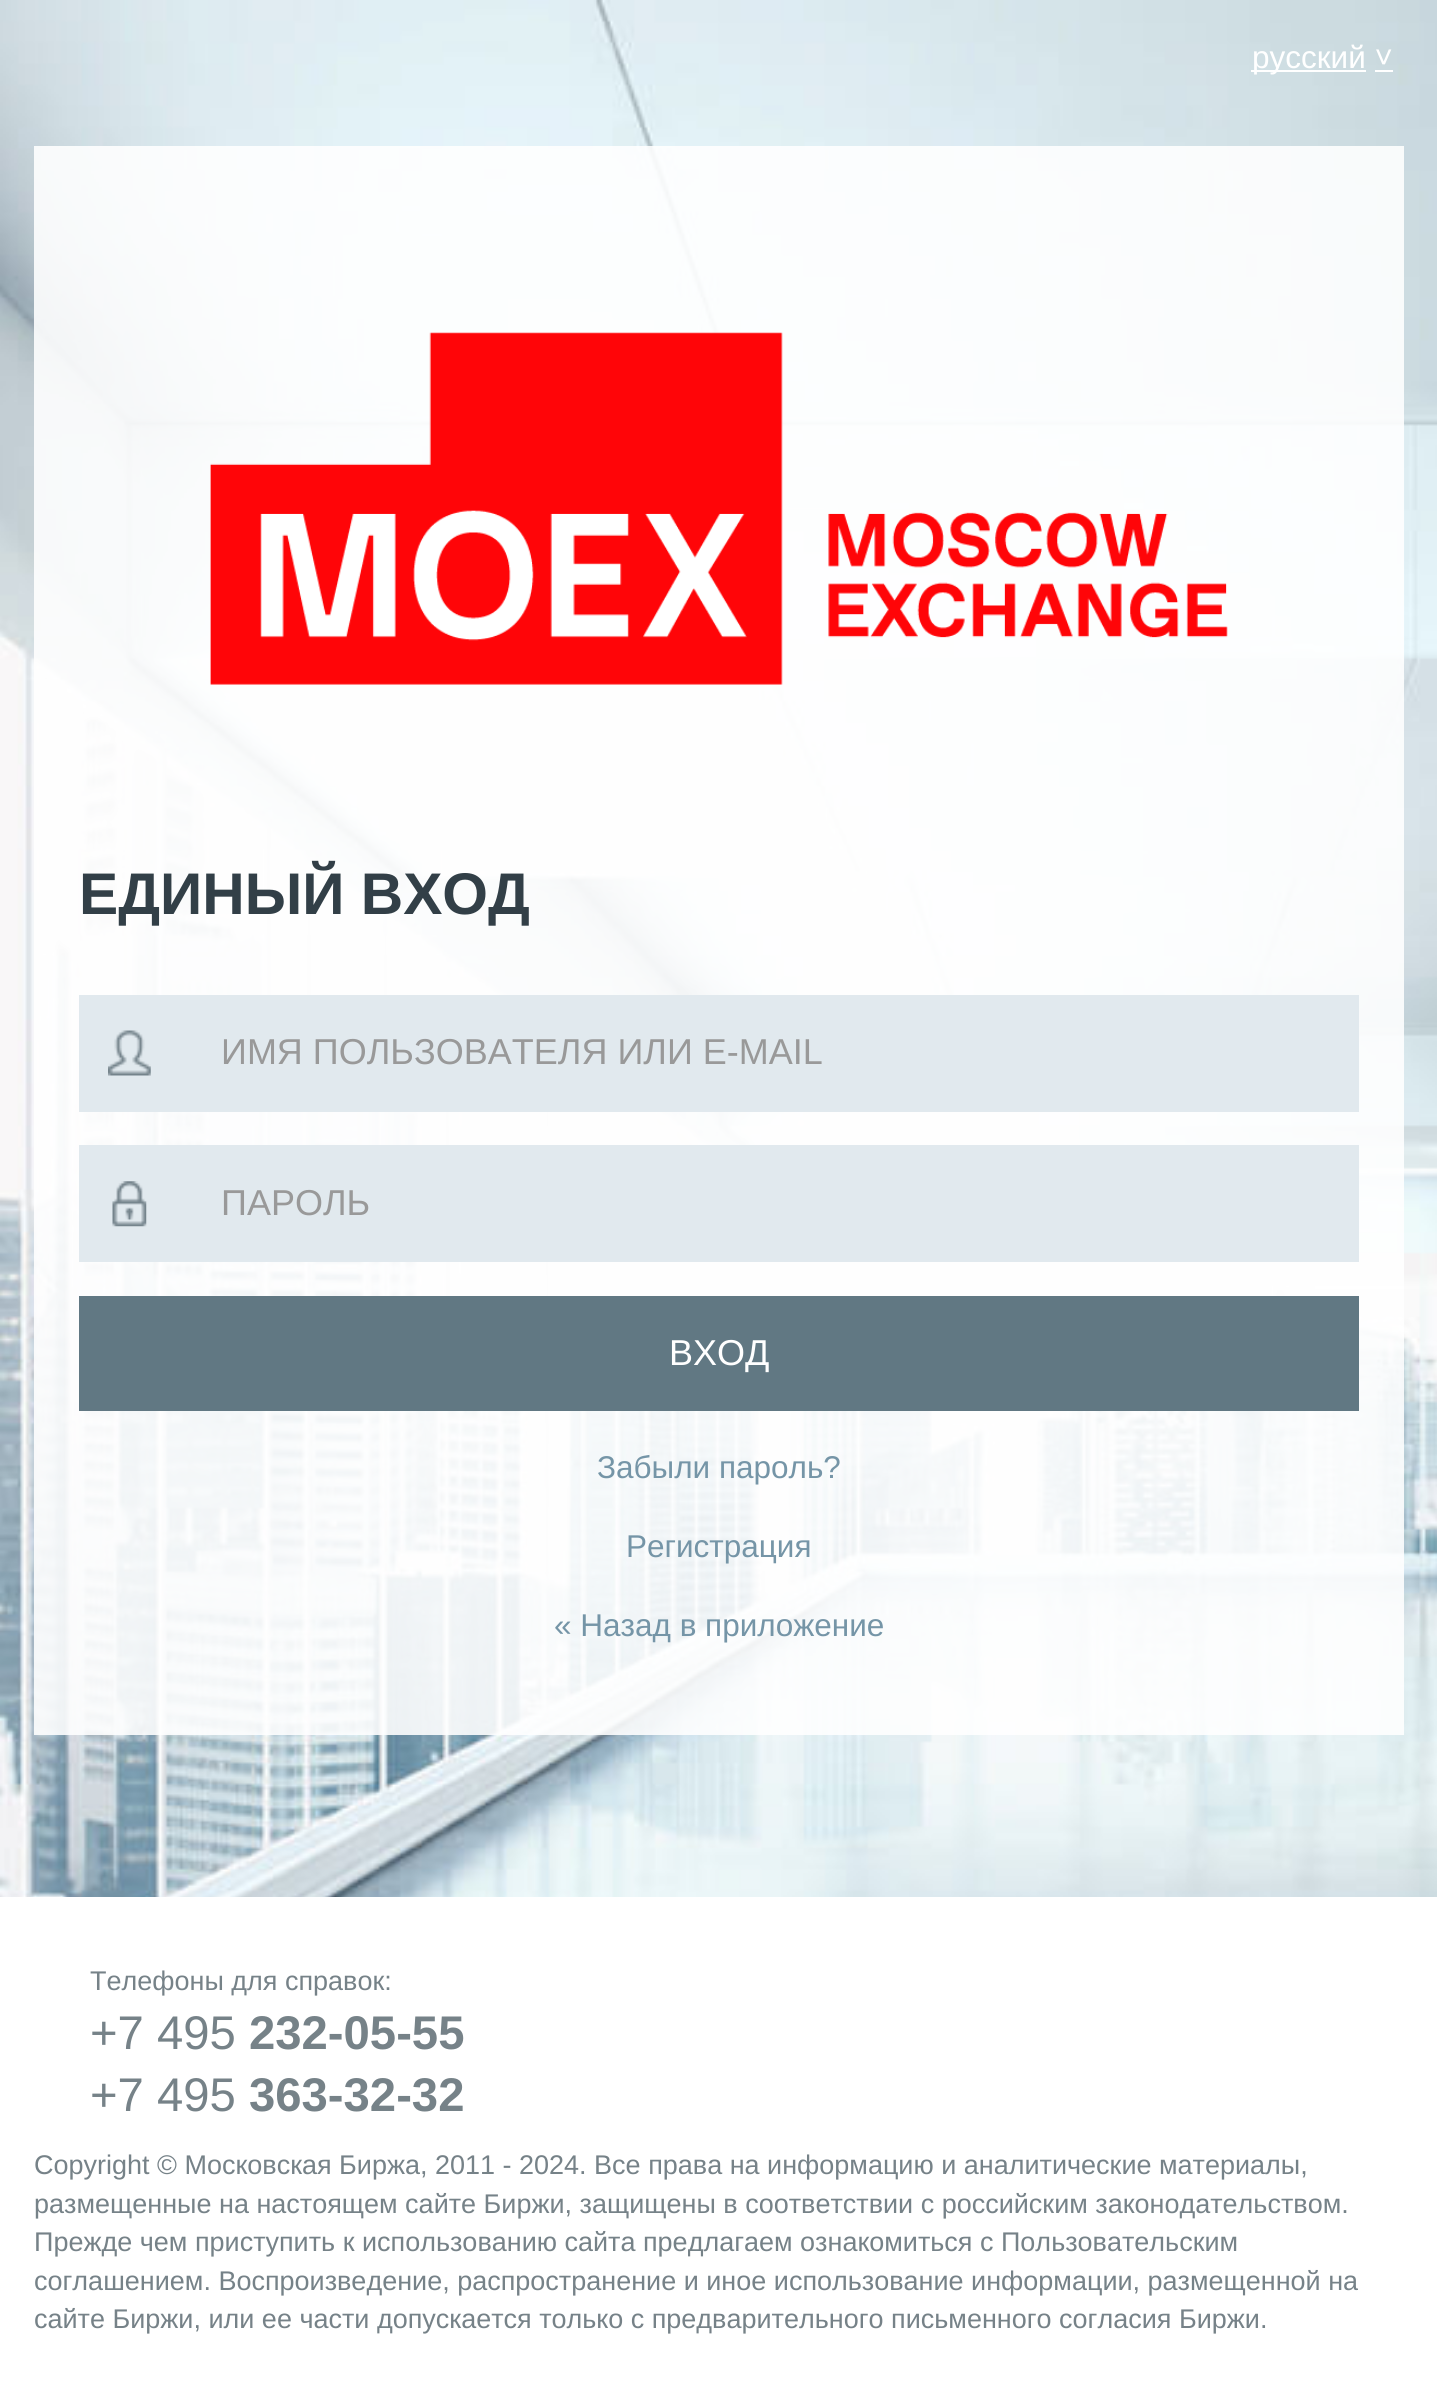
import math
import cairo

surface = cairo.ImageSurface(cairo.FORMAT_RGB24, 1437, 2388)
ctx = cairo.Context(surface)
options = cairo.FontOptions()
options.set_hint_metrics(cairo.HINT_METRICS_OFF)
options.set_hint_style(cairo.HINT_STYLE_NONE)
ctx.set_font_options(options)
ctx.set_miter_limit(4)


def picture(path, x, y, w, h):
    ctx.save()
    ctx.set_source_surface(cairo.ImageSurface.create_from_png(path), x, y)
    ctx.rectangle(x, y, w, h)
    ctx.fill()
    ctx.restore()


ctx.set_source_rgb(1, 1, 1)
ctx.paint()
picture("img1.png", 0, 0, 1437, 1897)
ctx.set_source_rgb(1, 1, 1)
ctx.rectangle(1251, 70, 115, 2)
ctx.fill()
ctx.select_font_face("Liberation Sans")
ctx.set_font_size(31.5)
ctx.move_to(1252, 68)
ctx.show_text("русский ˅")
ctx.rectangle(1375, 70, 18, 2)
ctx.fill()
ctx.set_source_rgba(1, 1, 1, 0.88)
ctx.rectangle(34, 146, 1370, 1589)
ctx.fill()
picture("img2.png", 210, 332, 1018, 353)
ctx.select_font_face("Liberation Sans", cairo.FONT_SLANT_NORMAL, cairo.FONT_WEIGHT_BOLD)
ctx.set_font_size(58.75)
ctx.set_source_rgb(0.196, 0.247, 0.278)
ctx.move_to(79, 914)
ctx.show_text("ЕДИНЫЙ ВХОД")
ctx.set_source_rgb(0.882, 0.914, 0.933)
ctx.rectangle(79, 995, 1280, 117)
ctx.fill()
picture("img3.png", 108, 1030, 43, 46)
ctx.select_font_face("Liberation Sans")
ctx.set_font_size(36)
ctx.set_source_rgb(0.6, 0.6, 0.6)
ctx.move_to(221, 1064)
ctx.show_text("ИМЯ ПОЛЬЗОВАТЕЛЯ ИЛИ E-MAIL")
ctx.set_source_rgb(0.882, 0.914, 0.933)
ctx.rectangle(79, 1145, 1280, 117)
ctx.fill()
picture("img4.png", 112, 1181, 35, 46)
ctx.set_source_rgb(0.6, 0.6, 0.6)
ctx.move_to(221, 1215)
ctx.show_text("ПАРОЛЬ")
ctx.set_source_rgb(0.38, 0.471, 0.514)
ctx.rectangle(79, 1296, 1280, 115)
ctx.fill()
ctx.set_source_rgb(1, 1, 1)
ctx.move_to(669, 1365)
ctx.show_text("ВХОД")
ctx.set_font_size(31.5)
ctx.set_source_rgb(0.459, 0.584, 0.655)
ctx.move_to(597, 1478)
ctx.show_text("Забыли пароль?")
ctx.move_to(626, 1557)
ctx.show_text("Регистрация")
ctx.move_to(554, 1636)
ctx.show_text("« Назад в приложение")
ctx.set_font_size(27)
ctx.set_source_rgb(0.463, 0.51, 0.533)
ctx.move_to(90, 1990)
ctx.show_text("Телефоны для справок:")
ctx.set_font_size(47.25)
ctx.move_to(90, 2049)
ctx.show_text("+7 495")
ctx.select_font_face("Liberation Sans", cairo.FONT_SLANT_NORMAL, cairo.FONT_WEIGHT_BOLD)
ctx.move_to(249, 2049)
ctx.show_text("232-05-55")
ctx.select_font_face("Liberation Sans")
ctx.move_to(90, 2111)
ctx.show_text("+7 495")
ctx.select_font_face("Liberation Sans", cairo.FONT_SLANT_NORMAL, cairo.FONT_WEIGHT_BOLD)
ctx.move_to(249, 2111)
ctx.show_text("363-32-32")
ctx.select_font_face("Liberation Sans")
ctx.set_font_size(27)
ctx.move_to(34, 2174)
ctx.show_text("Copyright © Московская Биржа, 2011 - 2024. Все права на информацию и аналитические материалы,")
ctx.move_to(34, 2213)
ctx.show_text("размещенные на настоящем сайте Биржи, защищены в соответствии с российским законодательством.")
ctx.move_to(34, 2251)
ctx.show_text("Прежде чем приступить к использованию сайта предлагаем ознакомиться с Пользовательским")
ctx.move_to(34, 2290)
ctx.show_text("соглашением. Воспроизведение, распространение и иное использование информации, размещенной на")
ctx.move_to(34, 2328)
ctx.show_text("сайте Биржи, или ее части допускается только с предварительного письменного согласия Биржи.")
surface.write_to_png("page.png")
